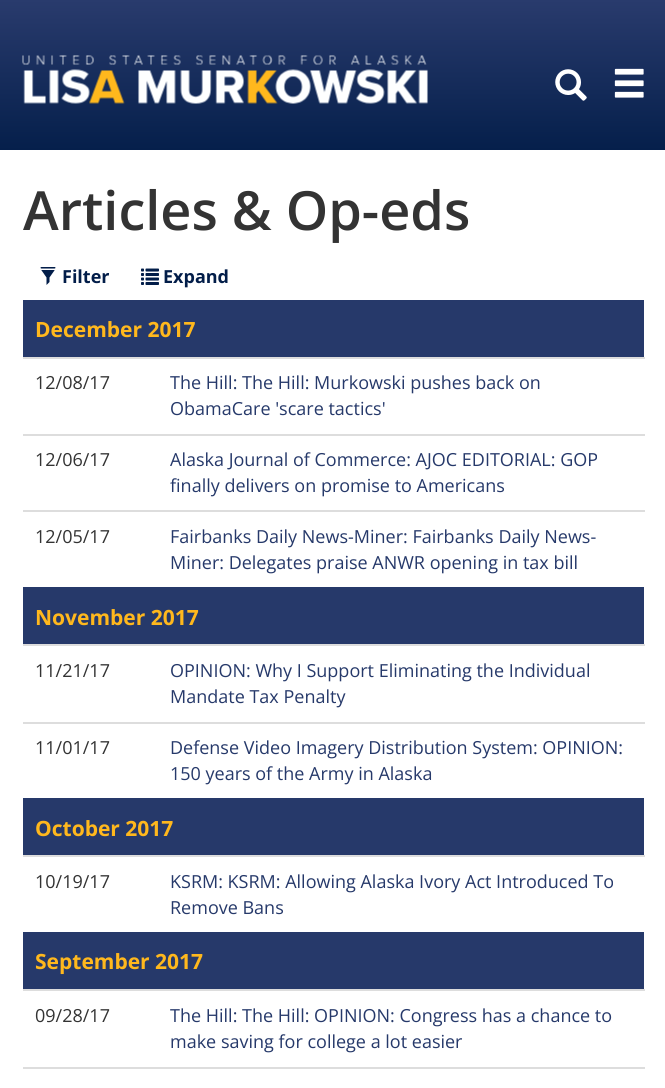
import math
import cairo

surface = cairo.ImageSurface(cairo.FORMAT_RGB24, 665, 1088)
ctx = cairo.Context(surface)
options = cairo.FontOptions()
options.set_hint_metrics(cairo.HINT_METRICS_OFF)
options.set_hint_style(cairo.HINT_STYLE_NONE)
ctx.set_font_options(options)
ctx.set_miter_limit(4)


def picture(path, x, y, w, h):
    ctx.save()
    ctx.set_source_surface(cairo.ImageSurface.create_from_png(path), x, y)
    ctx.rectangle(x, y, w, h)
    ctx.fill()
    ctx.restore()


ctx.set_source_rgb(1, 1, 1)
ctx.paint()
gradient = cairo.LinearGradient(333, 0, 333, 150)
gradient.add_color_stop_rgba(0, 0.161, 0.231, 0.427, 1)
gradient.add_color_stop_rgba(1, 0.02, 0.122, 0.294, 1)
ctx.set_source(gradient)
ctx.rectangle(0, 0, 665, 150)
ctx.fill()
picture("img1.png", 22, 55, 406, 49)
picture("img2.png", 555, 69, 32, 32)
picture("img3.png", 614, 68, 30, 30)
ctx.select_font_face("Open Sans SemiBold")
ctx.set_font_size(54)
ctx.set_source_rgb(0.2, 0.2, 0.2)
ctx.move_to(23, 230)
ctx.show_text("Articles & Op-eds")
picture("img4.png", 40, 267, 16, 18)
ctx.select_font_face("Open Sans", cairo.FONT_SLANT_NORMAL, cairo.FONT_WEIGHT_BOLD)
ctx.set_font_size(18)
ctx.set_source_rgb(0.008, 0.114, 0.286)
ctx.move_to(62, 283)
ctx.show_text("Filter")
picture("img5.png", 141, 268, 18, 17)
ctx.move_to(163, 283)
ctx.show_text("Expand")
ctx.set_source_rgb(0.149, 0.224, 0.416)
ctx.rectangle(23, 300, 621, 57)
ctx.fill()
ctx.set_font_size(21)
ctx.set_source_rgb(1, 0.722, 0.114)
ctx.move_to(35, 337)
ctx.show_text("December 2017")
ctx.select_font_face("Open Sans")
ctx.set_font_size(18)
ctx.set_source_rgb(0.2, 0.2, 0.2)
ctx.move_to(35, 389)
ctx.show_text("12/08/17")
ctx.set_source_rgb(0.867, 0.867, 0.867)
ctx.rectangle(23, 357, 622, 2)
ctx.fill()
ctx.set_source_rgb(0.149, 0.224, 0.416)
ctx.move_to(170, 389)
ctx.show_text("The Hill: The Hill: Murkowski pushes back on")
ctx.move_to(170, 415)
ctx.show_text("ObamaCare 'scare tactics'")
ctx.set_source_rgb(0.2, 0.2, 0.2)
ctx.move_to(35, 466)
ctx.show_text("12/06/17")
ctx.set_source_rgb(0.867, 0.867, 0.867)
ctx.rectangle(23, 434, 622, 2)
ctx.fill()
ctx.set_source_rgb(0.149, 0.224, 0.416)
ctx.move_to(170, 466)
ctx.show_text("Alaska Journal of Commerce: AJOC EDITORIAL: GOP")
ctx.move_to(170, 492)
ctx.show_text("finally delivers on promise to Americans")
ctx.set_source_rgb(0.2, 0.2, 0.2)
ctx.move_to(35, 543)
ctx.show_text("12/05/17")
ctx.set_source_rgb(0.867, 0.867, 0.867)
ctx.rectangle(23, 510, 622, 2)
ctx.fill()
ctx.set_source_rgb(0.149, 0.224, 0.416)
ctx.move_to(170, 543)
ctx.show_text("Fairbanks Daily News-Miner: Fairbanks Daily News-")
ctx.move_to(170, 569)
ctx.show_text("Miner: Delegates praise ANWR opening in tax bill")
ctx.rectangle(23, 587, 621, 57)
ctx.fill()
ctx.select_font_face("Open Sans", cairo.FONT_SLANT_NORMAL, cairo.FONT_WEIGHT_BOLD)
ctx.set_font_size(21)
ctx.set_source_rgb(1, 0.722, 0.114)
ctx.move_to(35, 625)
ctx.show_text("November 2017")
ctx.select_font_face("Open Sans")
ctx.set_font_size(18)
ctx.set_source_rgb(0.2, 0.2, 0.2)
ctx.move_to(35, 677)
ctx.show_text("11/21/17")
ctx.set_source_rgb(0.867, 0.867, 0.867)
ctx.rectangle(23, 644, 622, 2)
ctx.fill()
ctx.set_source_rgb(0.149, 0.224, 0.416)
ctx.move_to(170, 677)
ctx.show_text("OPINION: Why I Support Eliminating the Individual")
ctx.move_to(170, 703)
ctx.show_text("Mandate Tax Penalty")
ctx.set_source_rgb(0.2, 0.2, 0.2)
ctx.move_to(35, 754)
ctx.show_text("11/01/17")
ctx.set_source_rgb(0.867, 0.867, 0.867)
ctx.rectangle(23, 722, 622, 2)
ctx.fill()
ctx.set_source_rgb(0.149, 0.224, 0.416)
ctx.move_to(170, 754)
ctx.show_text("Defense Video Imagery Distribution System: OPINION:")
ctx.move_to(170, 780)
ctx.show_text("150 years of the Army in Alaska")
ctx.rectangle(23, 798, 621, 57)
ctx.fill()
ctx.select_font_face("Open Sans", cairo.FONT_SLANT_NORMAL, cairo.FONT_WEIGHT_BOLD)
ctx.set_font_size(21)
ctx.set_source_rgb(1, 0.722, 0.114)
ctx.move_to(35, 836)
ctx.show_text("October 2017")
ctx.select_font_face("Open Sans")
ctx.set_font_size(18)
ctx.set_source_rgb(0.2, 0.2, 0.2)
ctx.move_to(35, 888)
ctx.show_text("10/19/17")
ctx.set_source_rgb(0.867, 0.867, 0.867)
ctx.rectangle(23, 855, 622, 2)
ctx.fill()
ctx.set_source_rgb(0.149, 0.224, 0.416)
ctx.move_to(170, 888)
ctx.show_text("KSRM: KSRM: Allowing Alaska Ivory Act Introduced To")
ctx.move_to(170, 914)
ctx.show_text("Remove Bans")
ctx.rectangle(23, 932, 621, 57)
ctx.fill()
ctx.select_font_face("Open Sans", cairo.FONT_SLANT_NORMAL, cairo.FONT_WEIGHT_BOLD)
ctx.set_font_size(21)
ctx.set_source_rgb(1, 0.722, 0.114)
ctx.move_to(35, 969)
ctx.show_text("September 2017")
ctx.select_font_face("Open Sans")
ctx.set_font_size(18)
ctx.set_source_rgb(0.2, 0.2, 0.2)
ctx.move_to(35, 1022)
ctx.show_text("09/28/17")
ctx.set_source_rgb(0.867, 0.867, 0.867)
ctx.rectangle(23, 989, 622, 2)
ctx.fill()
ctx.set_source_rgb(0.149, 0.224, 0.416)
ctx.move_to(170, 1022)
ctx.show_text("The Hill: The Hill: OPINION: Congress has a chance to")
ctx.move_to(170, 1048)
ctx.show_text("make saving for college a lot easier")
ctx.set_source_rgb(0.867, 0.867, 0.867)
ctx.rectangle(23, 1067, 622, 2)
ctx.fill()
surface.write_to_png("page.png")
